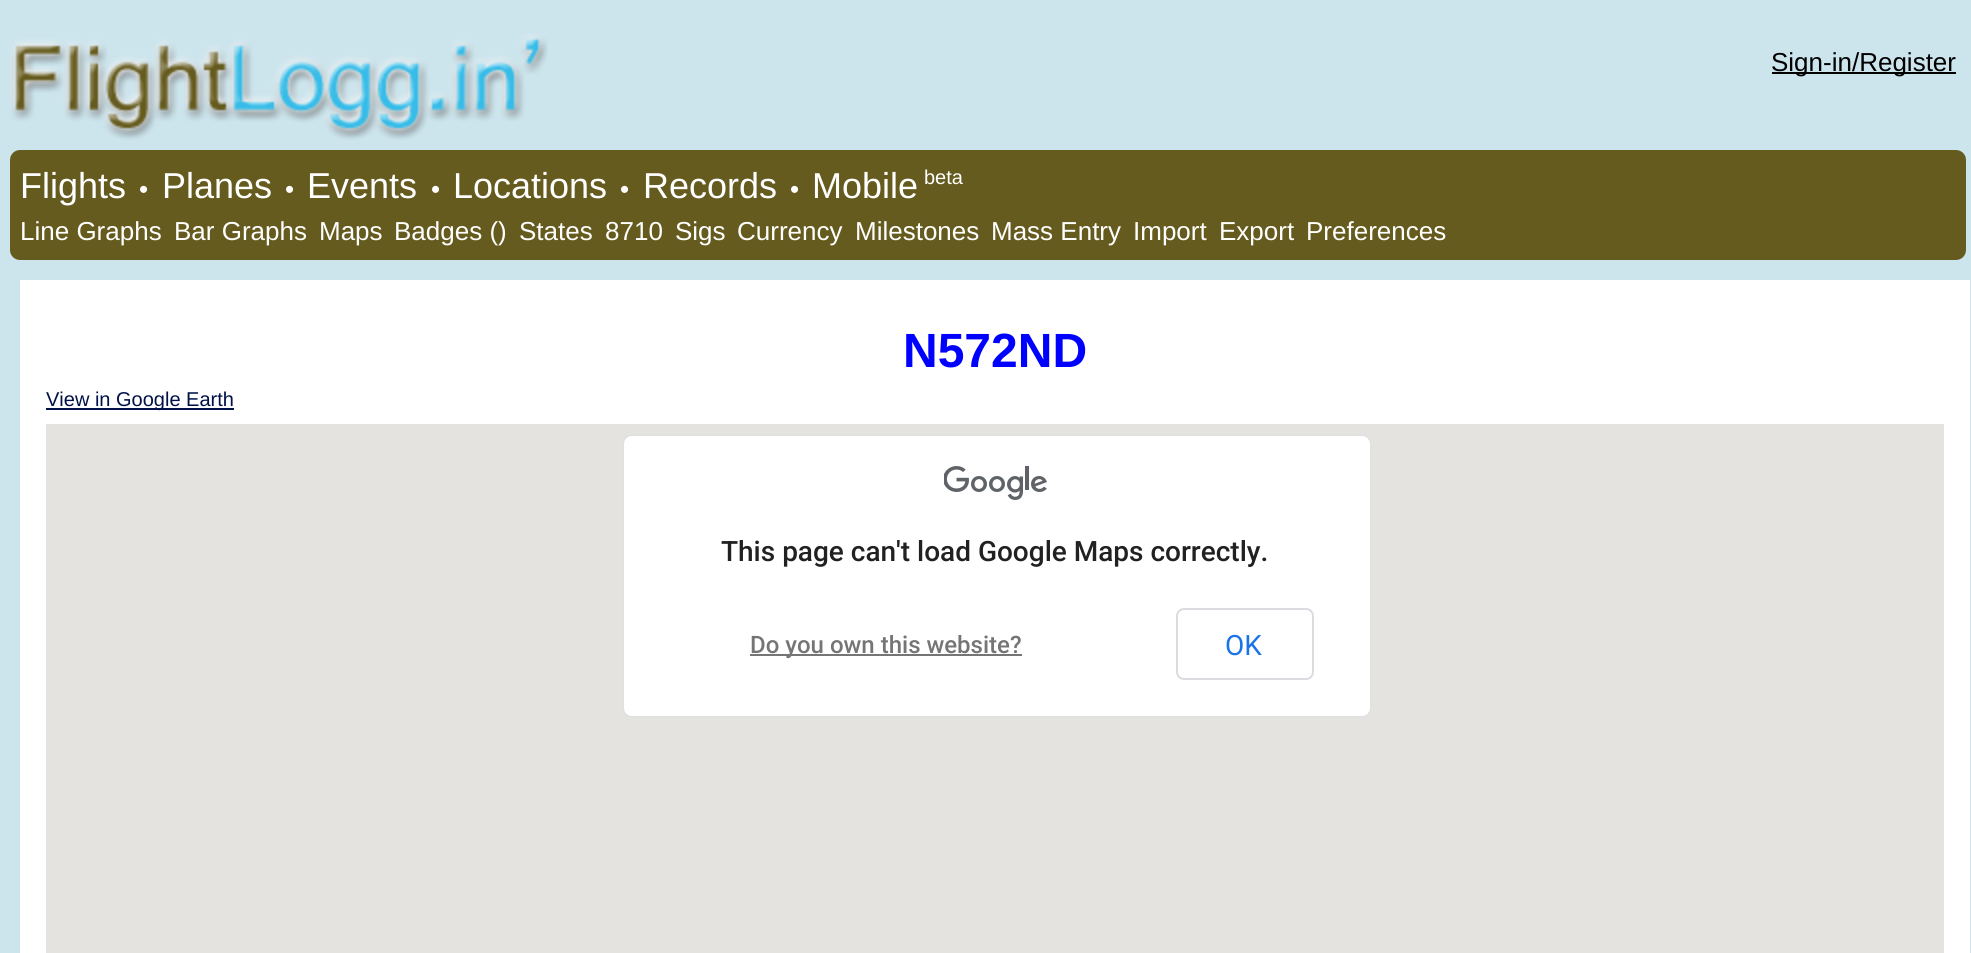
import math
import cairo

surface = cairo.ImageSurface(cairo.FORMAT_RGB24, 1971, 953)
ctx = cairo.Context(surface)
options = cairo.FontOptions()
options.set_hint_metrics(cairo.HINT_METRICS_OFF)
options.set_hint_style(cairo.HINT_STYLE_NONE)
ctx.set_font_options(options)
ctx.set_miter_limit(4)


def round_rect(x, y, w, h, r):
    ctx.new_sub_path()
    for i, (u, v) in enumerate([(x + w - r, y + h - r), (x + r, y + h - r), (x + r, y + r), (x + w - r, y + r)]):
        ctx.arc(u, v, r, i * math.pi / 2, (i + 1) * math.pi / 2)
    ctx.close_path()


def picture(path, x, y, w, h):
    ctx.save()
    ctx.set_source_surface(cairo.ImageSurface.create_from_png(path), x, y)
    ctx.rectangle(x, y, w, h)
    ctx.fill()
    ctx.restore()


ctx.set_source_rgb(0.8, 0.894, 0.922)
ctx.paint()
picture("img1.png", 10, 33, 538, 107)
ctx.set_source_rgb(0, 0, 0)
ctx.rectangle(1772, 72, 184, 2)
ctx.fill()
ctx.select_font_face("Liberation Sans")
ctx.set_font_size(26)
ctx.move_to(1771, 71)
ctx.show_text("Sign-in/Register")
ctx.set_source_rgb(0.4, 0.357, 0.118)
round_rect(10, 150, 1956, 110, 10)
ctx.fill()
ctx.set_font_size(36)
ctx.set_source_rgb(1, 1, 1)
ctx.move_to(20, 198)
ctx.show_text("Flights")
ctx.set_font_size(26)
ctx.move_to(139, 198)
ctx.show_text("•")
ctx.set_font_size(36)
ctx.move_to(162, 198)
ctx.show_text("Planes")
ctx.set_font_size(26)
ctx.move_to(285, 198)
ctx.show_text("•")
ctx.set_font_size(36)
ctx.move_to(307, 198)
ctx.show_text("Events")
ctx.set_font_size(26)
ctx.move_to(431, 198)
ctx.show_text("•")
ctx.set_font_size(36)
ctx.move_to(453, 198)
ctx.show_text("Locations")
ctx.set_font_size(26)
ctx.move_to(620, 198)
ctx.show_text("•")
ctx.set_font_size(36)
ctx.move_to(643, 198)
ctx.show_text("Records")
ctx.set_font_size(26)
ctx.move_to(790, 198)
ctx.show_text("•")
ctx.set_font_size(36)
ctx.move_to(812, 198)
ctx.show_text("Mobile")
ctx.set_font_size(20)
ctx.move_to(924, 184)
ctx.show_text("beta")
ctx.set_font_size(26)
ctx.move_to(20, 240)
ctx.show_text("Line Graphs")
ctx.move_to(174, 240)
ctx.show_text("Bar Graphs")
ctx.move_to(319, 240)
ctx.show_text("Maps")
ctx.move_to(394, 240)
ctx.show_text("Badges ()")
ctx.move_to(519, 240)
ctx.show_text("States")
ctx.move_to(605, 240)
ctx.show_text("8710")
ctx.move_to(675, 240)
ctx.show_text("Sigs")
ctx.move_to(737, 240)
ctx.show_text("Currency")
ctx.move_to(855, 240)
ctx.show_text("Milestones")
ctx.move_to(991, 240)
ctx.show_text("Mass Entry")
ctx.move_to(1133, 240)
ctx.show_text("Import")
ctx.move_to(1219, 240)
ctx.show_text("Export")
ctx.move_to(1306, 240)
ctx.show_text("Preferences")
ctx.rectangle(20, 280, 1950, 673)
ctx.fill()
ctx.select_font_face("Liberation Sans", cairo.FONT_SLANT_NORMAL, cairo.FONT_WEIGHT_BOLD)
ctx.set_font_size(48)
ctx.set_source_rgb(0, 0, 1)
ctx.move_to(903, 367)
ctx.show_text("N572ND")
ctx.set_source_rgb(0, 0.067, 0.278)
ctx.rectangle(46, 408, 188, 2)
ctx.fill()
ctx.select_font_face("Liberation Sans")
ctx.set_font_size(20)
ctx.move_to(46, 406)
ctx.show_text("View in Google Earth")
ctx.set_source_rgb(0.898, 0.89, 0.875)
ctx.rectangle(46, 424, 1898, 529)
ctx.fill()
ctx.set_source_rgb(1, 1, 1)
round_rect(622, 434, 750, 284, 10)
ctx.fill()
round_rect(623, 435, 748, 282, 9)
ctx.set_source_rgba(0, 0, 0, 0.12)
ctx.stroke()
picture("img2.png", 944, 466, 103, 34)
ctx.select_font_face("Roboto Medium")
ctx.set_font_size(28)
ctx.set_source_rgb(0.129, 0.129, 0.129)
ctx.move_to(721, 561)
ctx.show_text("This page can't load Google Maps correctly.")
ctx.set_source_rgb(0.459, 0.459, 0.459)
ctx.rectangle(750, 654, 272, 2)
ctx.fill()
ctx.set_font_size(24)
ctx.move_to(750, 653)
ctx.show_text("Do you own this website?")
round_rect(1177, 609, 136, 70, 7)
ctx.set_source_rgb(0.855, 0.863, 0.878)
ctx.stroke()
ctx.select_font_face("Roboto")
ctx.set_font_size(28)
ctx.set_source_rgb(0.102, 0.451, 0.91)
ctx.move_to(1225, 655)
ctx.show_text("OK")
surface.write_to_png("page.png")
